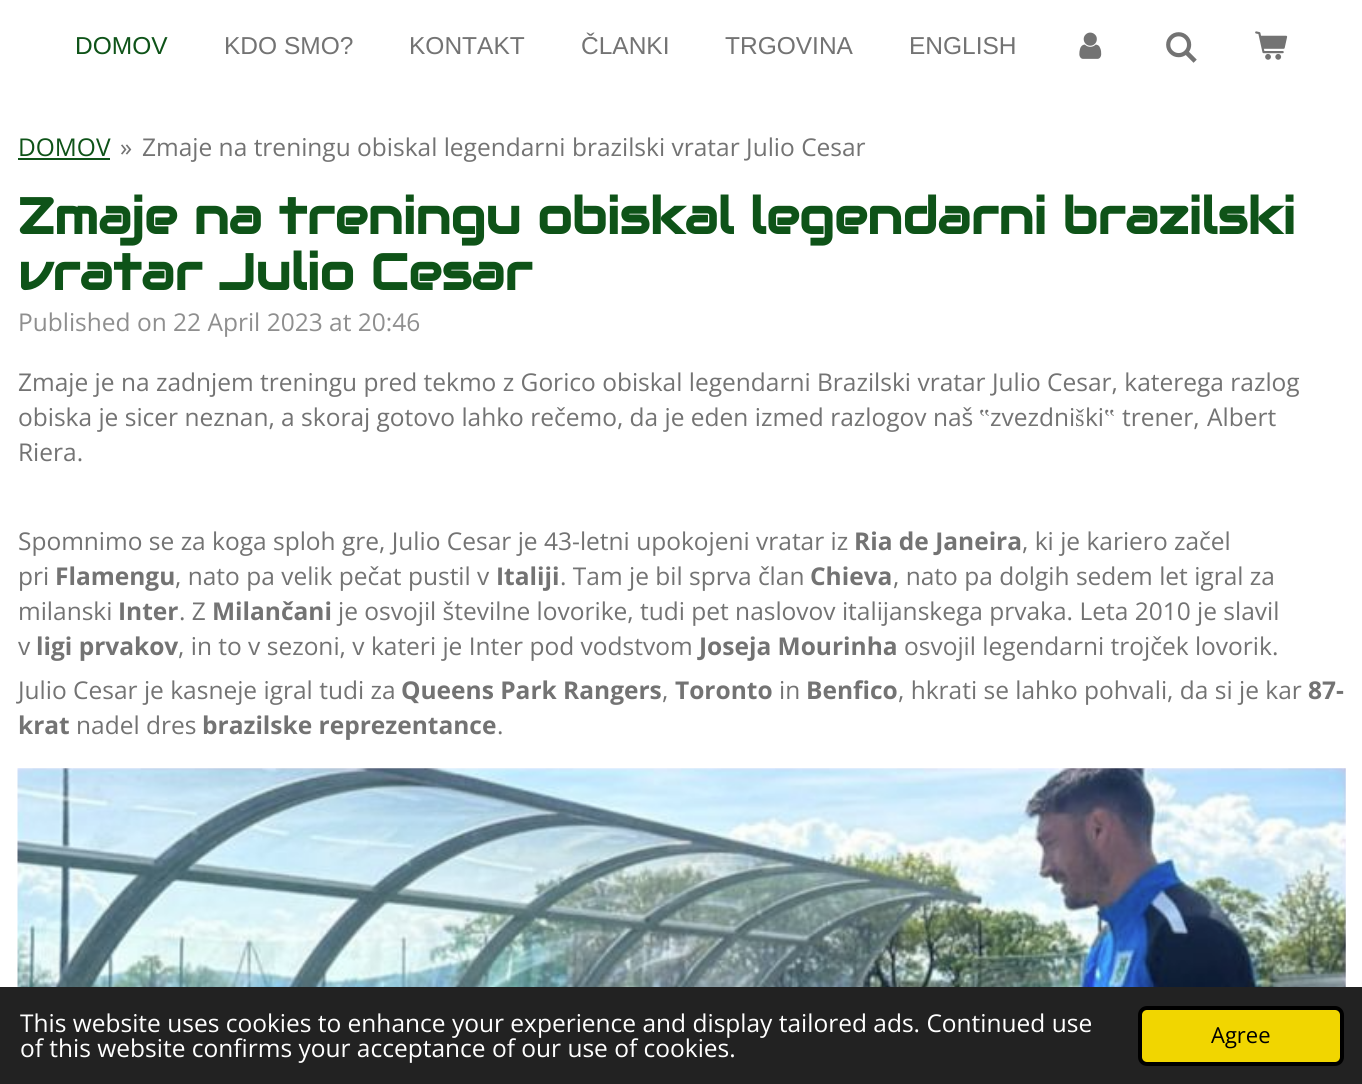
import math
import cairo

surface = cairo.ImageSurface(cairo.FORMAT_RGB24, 1362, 1084)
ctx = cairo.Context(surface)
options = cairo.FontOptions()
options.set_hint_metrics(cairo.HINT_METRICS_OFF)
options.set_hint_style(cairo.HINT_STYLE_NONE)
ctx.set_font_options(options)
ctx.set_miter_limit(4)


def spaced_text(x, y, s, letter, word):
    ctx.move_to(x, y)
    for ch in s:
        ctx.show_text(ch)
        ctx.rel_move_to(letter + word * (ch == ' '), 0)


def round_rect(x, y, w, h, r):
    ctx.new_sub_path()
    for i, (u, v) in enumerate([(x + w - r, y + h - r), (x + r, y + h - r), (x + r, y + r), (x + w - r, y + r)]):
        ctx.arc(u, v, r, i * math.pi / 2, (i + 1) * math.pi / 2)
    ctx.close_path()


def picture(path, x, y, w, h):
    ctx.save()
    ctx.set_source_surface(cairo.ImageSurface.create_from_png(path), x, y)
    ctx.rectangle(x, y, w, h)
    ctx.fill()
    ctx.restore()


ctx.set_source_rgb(1, 1, 1)
ctx.paint()
ctx.select_font_face("Liberation Sans")
ctx.set_font_size(24.5)
ctx.set_source_rgb(0.055, 0.325, 0.094)
ctx.move_to(75, 54)
ctx.show_text("DOMOV")
ctx.set_source_rgb(0.451, 0.451, 0.451)
ctx.move_to(224, 54)
ctx.show_text("KDO SMO?")
ctx.move_to(409, 54)
ctx.show_text("KONTAKT")
ctx.move_to(581, 54)
ctx.show_text("ČLANKI")
ctx.move_to(725, 54)
ctx.show_text("TRGOVINA")
ctx.move_to(909, 54)
ctx.show_text("ENGLISH")
picture("img1.png", 1079, 32, 23, 27)
picture("img2.png", 1166, 32, 31, 31)
picture("img3.png", 1255, 31, 33, 29)
ctx.select_font_face("Open Sans")
ctx.set_source_rgb(0.055, 0.325, 0.094)
ctx.move_to(18, 156)
ctx.show_text("DOMOV")
ctx.rectangle(18, 158, 92, 2)
ctx.fill()
ctx.set_source_rgb(0.451, 0.451, 0.451)
ctx.move_to(120, 156)
ctx.show_text("»")
ctx.move_to(142, 156)
ctx.show_text("Zmaje na treningu obiskal legendarni brazilski vratar Julio Cesar")
ctx.select_font_face("Audiowide", cairo.FONT_SLANT_NORMAL, cairo.FONT_WEIGHT_BOLD)
ctx.set_font_size(50.6)
ctx.set_source_rgb(0.055, 0.325, 0.094)
ctx.move_to(18, 234)
ctx.show_text("Zmaje na treningu obiskal legendarni brazilski")
ctx.move_to(18, 290)
ctx.show_text("vratar Julio Cesar")
ctx.select_font_face("Open Sans")
ctx.set_font_size(24.5)
ctx.set_source_rgb(0.561, 0.561, 0.561)
ctx.move_to(18, 331)
ctx.show_text("Published on 22 April 2023 at 20:46")
ctx.set_source_rgb(0.451, 0.451, 0.451)
ctx.move_to(18, 391)
ctx.show_text("Zmaje je na zadnjem treningu pred tekmo z Gorico obiskal legendarni Brazilski vratar Julio Cesar, katerega razlog")
ctx.move_to(18, 426)
ctx.show_text("obiska je sicer neznan, a skoraj gotovo lahko rečemo, da je eden izmed razlogov naš")
ctx.select_font_face("Liberation Serif")
ctx.move_to(979, 426)
ctx.show_text("‟")
ctx.select_font_face("Open Sans")
ctx.move_to(990, 426)
ctx.show_text("zvezdni")
ctx.select_font_face("Liberation Serif")
ctx.move_to(1075, 426)
ctx.show_text("š")
ctx.select_font_face("Open Sans")
ctx.move_to(1085, 426)
ctx.show_text("ki")
ctx.select_font_face("Liberation Serif")
ctx.move_to(1104, 426)
ctx.show_text("‟")
ctx.select_font_face("Open Sans")
spaced_text(1122, 426, "trener, Albert", 0, 1)
ctx.move_to(18, 461)
ctx.show_text("Riera.")
ctx.move_to(18, 550)
ctx.show_text("Spomnimo se za koga sploh gre, Julio Cesar je 43-letni upokojeni vratar iz")
ctx.select_font_face("Open Sans", cairo.FONT_SLANT_NORMAL, cairo.FONT_WEIGHT_BOLD)
ctx.move_to(854, 550)
ctx.show_text("Ria de Janeira")
ctx.select_font_face("Open Sans")
ctx.move_to(1022, 550)
ctx.show_text(", ki je kariero začel")
ctx.move_to(18, 585)
ctx.show_text("pri")
ctx.select_font_face("Open Sans", cairo.FONT_SLANT_NORMAL, cairo.FONT_WEIGHT_BOLD)
ctx.move_to(55, 585)
ctx.show_text("Flamengu")
ctx.select_font_face("Open Sans")
ctx.move_to(175, 585)
ctx.show_text(", nato pa velik pečat pustil v")
ctx.select_font_face("Open Sans", cairo.FONT_SLANT_NORMAL, cairo.FONT_WEIGHT_BOLD)
ctx.move_to(496, 585)
ctx.show_text("Italiji")
ctx.select_font_face("Open Sans")
ctx.move_to(560, 585)
ctx.show_text(". Tam je bil sprva član")
ctx.select_font_face("Open Sans", cairo.FONT_SLANT_NORMAL, cairo.FONT_WEIGHT_BOLD)
ctx.move_to(810, 585)
ctx.show_text("Chieva")
ctx.select_font_face("Open Sans")
ctx.move_to(893, 585)
ctx.show_text(", nato pa dolgih sedem let igral za")
ctx.move_to(18, 620)
ctx.show_text("milanski")
ctx.select_font_face("Open Sans", cairo.FONT_SLANT_NORMAL, cairo.FONT_WEIGHT_BOLD)
ctx.move_to(118, 620)
ctx.show_text("Inter")
ctx.select_font_face("Open Sans")
ctx.move_to(179, 620)
ctx.show_text(". Z")
ctx.select_font_face("Open Sans", cairo.FONT_SLANT_NORMAL, cairo.FONT_WEIGHT_BOLD)
ctx.move_to(212, 620)
ctx.show_text("Milančani")
ctx.select_font_face("Open Sans")
ctx.move_to(338, 620)
ctx.show_text("je osvojil številne lovorike, tudi pet naslovov italijanskega prvaka. Leta 2010 je slavil")
ctx.move_to(18, 655)
ctx.show_text("v")
ctx.select_font_face("Open Sans", cairo.FONT_SLANT_NORMAL, cairo.FONT_WEIGHT_BOLD)
ctx.move_to(36, 655)
ctx.show_text("ligi prvakov")
ctx.select_font_face("Open Sans")
ctx.move_to(178, 655)
ctx.show_text(", in to v sezoni, v kateri je Inter pod vodstvom")
ctx.select_font_face("Open Sans", cairo.FONT_SLANT_NORMAL, cairo.FONT_WEIGHT_BOLD)
ctx.move_to(699, 655)
ctx.show_text("Joseja Mourinha")
ctx.select_font_face("Open Sans")
ctx.move_to(904, 655)
ctx.show_text("osvojil legendarni trojček lovorik.")
ctx.move_to(18, 699)
ctx.show_text("Julio Cesar je kasneje igral tudi za")
ctx.select_font_face("Open Sans", cairo.FONT_SLANT_NORMAL, cairo.FONT_WEIGHT_BOLD)
ctx.move_to(401, 699)
ctx.show_text("Queens Park Rangers")
ctx.select_font_face("Open Sans")
ctx.move_to(662, 699)
ctx.show_text(",")
ctx.select_font_face("Open Sans", cairo.FONT_SLANT_NORMAL, cairo.FONT_WEIGHT_BOLD)
ctx.move_to(675, 699)
ctx.show_text("Toronto")
ctx.select_font_face("Open Sans")
ctx.move_to(779, 699)
ctx.show_text("in")
ctx.select_font_face("Open Sans", cairo.FONT_SLANT_NORMAL, cairo.FONT_WEIGHT_BOLD)
ctx.move_to(806, 699)
ctx.show_text("Benfico")
ctx.select_font_face("Open Sans")
ctx.move_to(898, 699)
ctx.show_text(", hkrati se lahko pohvali, da si je kar")
ctx.select_font_face("Open Sans", cairo.FONT_SLANT_NORMAL, cairo.FONT_WEIGHT_BOLD)
ctx.move_to(1308, 699)
ctx.show_text("87-")
ctx.move_to(18, 734)
ctx.show_text("krat")
ctx.select_font_face("Open Sans")
ctx.move_to(76, 734)
ctx.show_text("nadel dres")
ctx.select_font_face("Open Sans", cairo.FONT_SLANT_NORMAL, cairo.FONT_WEIGHT_BOLD)
ctx.move_to(202, 734)
ctx.show_text("brazilske reprezentance")
ctx.select_font_face("Open Sans")
ctx.move_to(497, 734)
ctx.show_text(".")
picture("img4.png", 17, 768, 1329, 219)
ctx.set_source_rgb(0.133, 0.133, 0.133)
ctx.rectangle(0, 987, 1362, 97)
ctx.fill()
ctx.set_source_rgb(1, 1, 1)
ctx.move_to(20, 1032)
ctx.show_text("This website uses cookies to enhance your experience and display tailored ads. Continued use")
ctx.move_to(20, 1057)
ctx.show_text("of this website confirms your acceptance of our use of cookies.")
ctx.set_source_rgb(0.945, 0.839, 0)
round_rect(1140, 1008, 202, 56, 7)
ctx.fill_preserve()
ctx.set_source_rgb(0, 0, 0)
ctx.set_line_width(4)
ctx.stroke()
ctx.set_font_size(22)
ctx.move_to(1211, 1043)
ctx.show_text("Agree")
surface.write_to_png("page.png")
